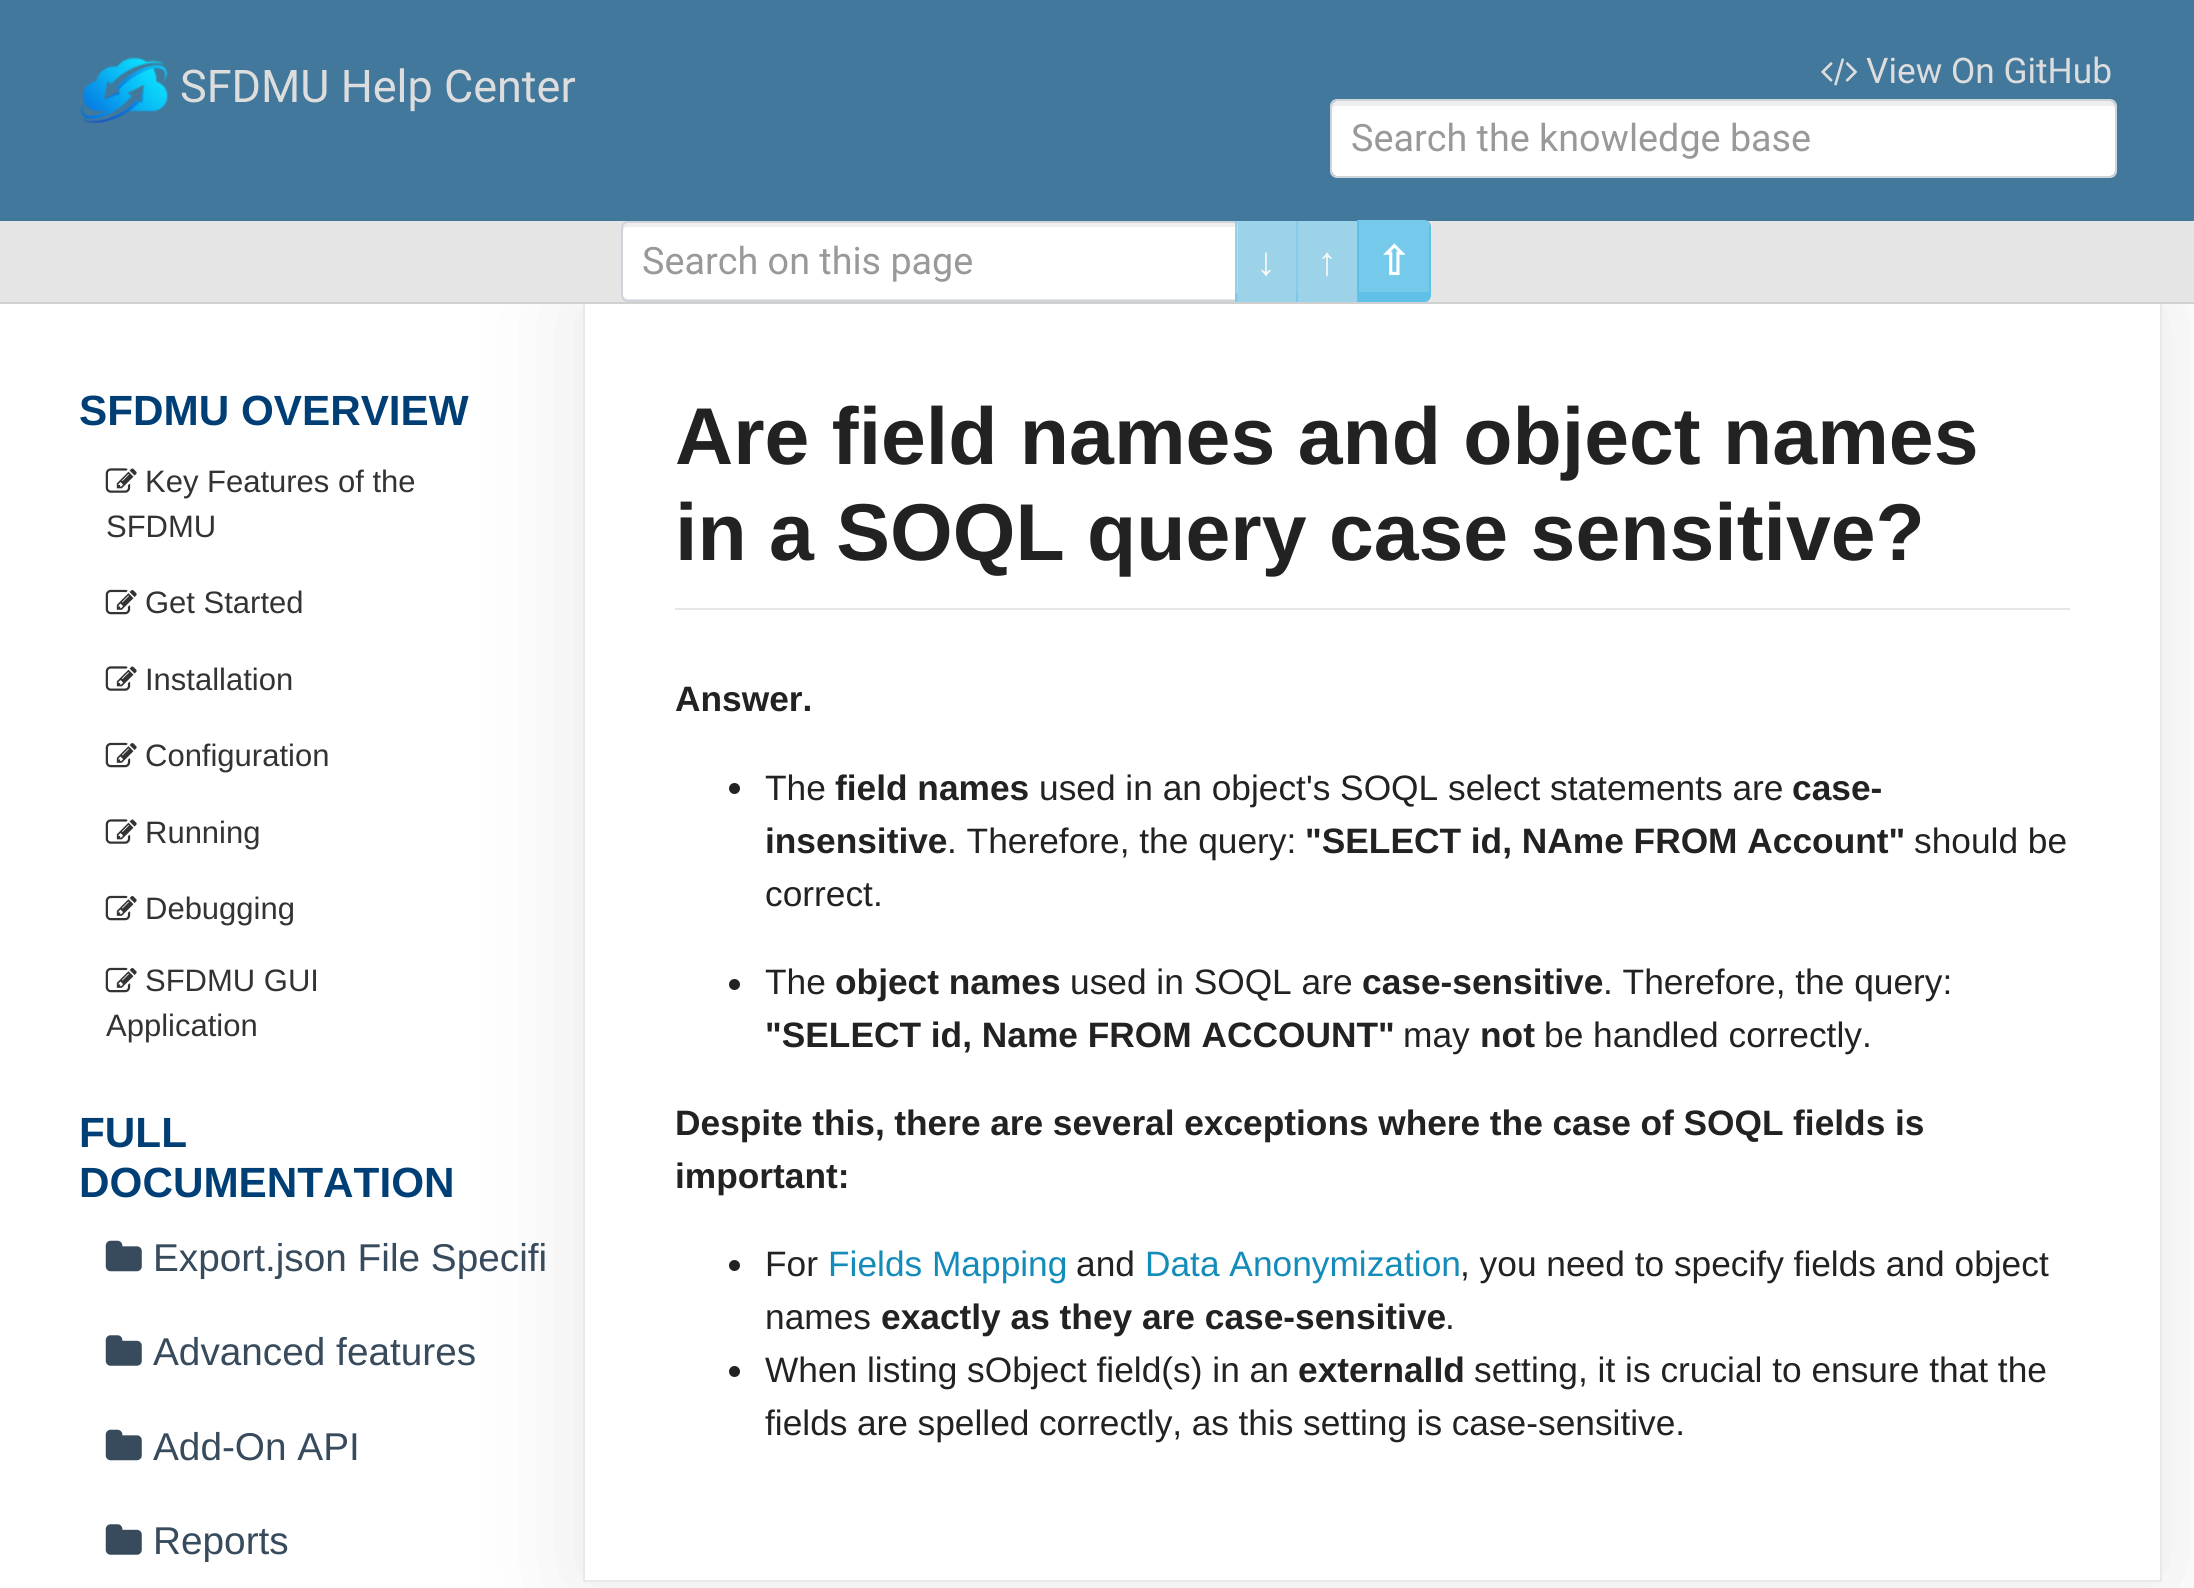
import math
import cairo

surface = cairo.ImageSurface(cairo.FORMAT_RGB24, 2194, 1588)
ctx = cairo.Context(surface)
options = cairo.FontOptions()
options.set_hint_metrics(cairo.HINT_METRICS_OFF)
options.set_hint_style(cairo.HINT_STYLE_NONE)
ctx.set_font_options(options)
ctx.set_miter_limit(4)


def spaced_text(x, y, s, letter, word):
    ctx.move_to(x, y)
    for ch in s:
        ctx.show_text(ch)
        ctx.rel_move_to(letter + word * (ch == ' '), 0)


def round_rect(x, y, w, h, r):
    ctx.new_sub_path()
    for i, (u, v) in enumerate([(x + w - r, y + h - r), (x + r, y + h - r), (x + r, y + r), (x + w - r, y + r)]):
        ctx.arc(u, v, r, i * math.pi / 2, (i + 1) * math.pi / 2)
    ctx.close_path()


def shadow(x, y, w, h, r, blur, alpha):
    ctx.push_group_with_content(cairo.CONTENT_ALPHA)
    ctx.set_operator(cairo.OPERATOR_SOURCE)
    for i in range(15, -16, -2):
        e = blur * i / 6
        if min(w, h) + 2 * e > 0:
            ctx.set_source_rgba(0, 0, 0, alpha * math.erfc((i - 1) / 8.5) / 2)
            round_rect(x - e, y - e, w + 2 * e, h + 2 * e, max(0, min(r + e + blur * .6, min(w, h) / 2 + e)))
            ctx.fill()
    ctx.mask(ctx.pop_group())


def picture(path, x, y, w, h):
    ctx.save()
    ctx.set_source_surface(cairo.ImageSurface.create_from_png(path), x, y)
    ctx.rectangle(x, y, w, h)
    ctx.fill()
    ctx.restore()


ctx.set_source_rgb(1, 1, 1)
ctx.paint()
ctx.save()
ctx.set_fill_rule(cairo.FILL_RULE_EVEN_ODD)
ctx.new_path()
ctx.move_to(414, 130)
ctx.line_to(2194, 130)
ctx.line_to(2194, 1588)
ctx.line_to(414, 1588)
ctx.close_path()
ctx.move_to(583, 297)
ctx.line_to(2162, 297)
ctx.line_to(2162, 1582)
ctx.line_to(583, 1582)
ctx.close_path()
ctx.clip()
ctx.set_source_rgb(0, 0, 0)
shadow(583, 299, 1579, 1285, 0, 56, 0.1)
ctx.restore()
ctx.set_source_rgb(0.259, 0.471, 0.612)
ctx.rectangle(0, 0, 2194, 221)
ctx.fill()
picture("img1.png", 80, 57, 88, 67)
ctx.select_font_face("Roboto")
ctx.set_font_size(45)
ctx.set_source_rgb(0.867, 0.867, 0.867)
ctx.move_to(180, 102)
ctx.show_text("SFDMU Help Center")
picture("img2.png", 1821, 58, 37, 28)
ctx.set_font_size(35.3)
ctx.move_to(1866, 83)
ctx.show_text("View On GitHub")
ctx.set_source_rgb(1, 1, 1)
round_rect(1332, 101, 783, 75, 5)
ctx.fill()
ctx.set_source_rgba(0, 0, 0, 0.07)
ctx.new_path()
ctx.move_to(1336, 106)
ctx.line_to(2111, 106)
ctx.curve_to(2113, 106, 2115, 108, 2115, 110)
ctx.line_to(2115, 106)
ctx.curve_to(2115, 103, 2113, 101, 2110, 101)
ctx.line_to(1337, 101)
ctx.curve_to(1334, 101, 1332, 103, 1332, 106)
ctx.line_to(1332, 110)
ctx.curve_to(1332, 108, 1334, 106, 1336, 106)
ctx.close_path()
ctx.fill()
round_rect(1331, 100, 785, 77, 6)
ctx.set_source_rgb(0.808, 0.831, 0.855)
ctx.stroke()
ctx.set_font_size(37.75)
ctx.set_source_rgb(0.6, 0.6, 0.6)
ctx.move_to(1351, 151)
ctx.show_text("Search the knowledge base")
ctx.rectangle(584, 298, 1577, 1283)
ctx.set_source_rgb(0.914, 0.914, 0.914)
ctx.stroke()
ctx.set_source_rgb(0.902, 0.898, 0.898)
ctx.rectangle(0, 221, 2194, 81)
ctx.fill()
ctx.set_source_rgb(0.816, 0.816, 0.816)
ctx.rectangle(0, 302, 2194, 2)
ctx.fill()
ctx.set_source_rgb(1, 1, 1)
ctx.new_path()
ctx.move_to(628, 223)
ctx.line_to(1235, 223)
ctx.line_to(1235, 299)
ctx.line_to(628, 299)
ctx.curve_to(625, 299, 623, 297, 623, 294)
ctx.line_to(623, 228)
ctx.curve_to(623, 225, 625, 223, 628, 223)
ctx.close_path()
ctx.fill()
ctx.set_source_rgba(0, 0, 0, 0.07)
ctx.new_path()
ctx.move_to(627, 227)
ctx.line_to(1235, 227)
ctx.line_to(1235, 223)
ctx.line_to(628, 223)
ctx.curve_to(625, 223, 623, 225, 623, 228)
ctx.line_to(623, 231)
ctx.curve_to(623, 229, 625, 227, 627, 227)
ctx.close_path()
ctx.fill()
ctx.new_path()
ctx.move_to(628, 222)
ctx.line_to(1237, 222)
ctx.line_to(1237, 301)
ctx.line_to(628, 301)
ctx.curve_to(624.5, 301, 622, 298.5, 622, 295)
ctx.line_to(622, 228)
ctx.curve_to(622, 224.5, 624.5, 222, 628, 222)
ctx.close_path()
ctx.set_source_rgb(0.808, 0.831, 0.855)
ctx.stroke()
ctx.set_source_rgb(0.6, 0.6, 0.6)
ctx.move_to(642, 274)
ctx.show_text("Search on this page")
ctx.set_source_rgb(0.616, 0.827, 0.914)
ctx.rectangle(1238, 221, 58, 72)
ctx.fill()
ctx.rectangle(1296, 221, 2, 81)
ctx.fill()
ctx.set_source_rgba(0.459, 0.792, 0.922, 0.65)
ctx.rectangle(1235, 293, 63, 9)
ctx.fill()
ctx.rectangle(1235, 221, 2, 81)
ctx.fill()
ctx.select_font_face("Liberation Serif", cairo.FONT_SLANT_NORMAL, cairo.FONT_WEIGHT_BOLD)
ctx.set_font_size(40)
ctx.set_source_rgb(0.965, 0.965, 0.965)
ctx.move_to(1256, 275)
ctx.show_text("↓")
ctx.set_source_rgb(0.616, 0.827, 0.914)
ctx.rectangle(1298, 221, 59, 72)
ctx.fill()
ctx.set_source_rgba(0.459, 0.792, 0.922, 0.65)
ctx.rectangle(1296, 293, 61, 9)
ctx.fill()
ctx.rectangle(1296, 221, 2, 81)
ctx.fill()
ctx.set_source_rgb(0.965, 0.965, 0.965)
ctx.move_to(1317, 275)
ctx.show_text("↑")
ctx.set_source_rgb(0.459, 0.792, 0.922)
ctx.new_path()
ctx.move_to(1359, 220)
ctx.line_to(1425, 220)
ctx.curve_to(1427, 220, 1429, 223, 1429, 227)
ctx.line_to(1429, 292)
ctx.line_to(1359, 292)
ctx.close_path()
ctx.fill()
ctx.set_source_rgb(0.373, 0.757, 0.91)
ctx.set_fill_rule(cairo.FILL_RULE_EVEN_ODD)
ctx.new_path()
ctx.move_to(1357, 220)
ctx.line_to(1425, 220)
ctx.curve_to(1428, 220, 1431, 223, 1431, 227)
ctx.line_to(1431, 295)
ctx.curve_to(1431, 299, 1428, 302, 1425, 302)
ctx.line_to(1357, 302)
ctx.close_path()
ctx.move_to(1359, 220)
ctx.line_to(1425, 220)
ctx.curve_to(1427, 220, 1429, 223, 1429, 227)
ctx.line_to(1429, 292)
ctx.line_to(1359, 292)
ctx.close_path()
ctx.fill()
ctx.select_font_face("DejaVu Sans", cairo.FONT_SLANT_NORMAL, cairo.FONT_WEIGHT_BOLD)
ctx.set_source_rgb(1, 1, 1)
ctx.move_to(1377, 275)
ctx.show_text("⇧")
ctx.select_font_face("Liberation Sans", cairo.FONT_SLANT_NORMAL, cairo.FONT_WEIGHT_BOLD)
ctx.set_font_size(42.25)
ctx.set_source_rgb(0, 0.247, 0.459)
ctx.move_to(79, 425)
ctx.show_text("SFDMU OVERVIEW")
picture("img3.png", 105, 468, 32, 25)
ctx.select_font_face("Liberation Sans")
ctx.set_font_size(31)
ctx.set_source_rgb(0.2, 0.2, 0.2)
ctx.move_to(145, 492)
ctx.show_text("Key Features of the")
ctx.move_to(106, 537)
ctx.show_text("SFDMU")
picture("img4.png", 105, 589, 32, 26)
ctx.move_to(145, 613)
ctx.show_text("Get Started")
picture("img3.png", 105, 666, 32, 25)
ctx.move_to(145, 690)
ctx.show_text("Installation")
picture("img4.png", 105, 742, 32, 26)
ctx.move_to(145, 766)
ctx.show_text("Configuration")
picture("img3.png", 105, 819, 32, 25)
ctx.move_to(145, 843)
ctx.show_text("Running")
picture("img4.png", 105, 895, 32, 26)
ctx.move_to(145, 919)
ctx.show_text("Debugging")
picture("img4.png", 105, 967, 32, 26)
ctx.move_to(145, 991)
ctx.show_text("SFDMU GUI")
ctx.move_to(106, 1036)
ctx.show_text("Application")
ctx.select_font_face("Liberation Sans", cairo.FONT_SLANT_NORMAL, cairo.FONT_WEIGHT_BOLD)
ctx.set_font_size(42.25)
ctx.set_source_rgb(0, 0.247, 0.459)
ctx.move_to(79, 1147)
ctx.show_text("FULL")
ctx.move_to(79, 1197)
ctx.show_text("DOCUMENTATION")
picture("img5.png", 105, 1240, 37, 32)
ctx.select_font_face("Liberation Sans")
ctx.set_font_size(38.75)
ctx.set_source_rgb(0.216, 0.294, 0.365)
ctx.move_to(153, 1271)
ctx.show_text("Export.json File Specifi")
picture("img6.png", 105, 1335, 37, 31)
ctx.move_to(153, 1365)
ctx.show_text("Advanced features")
picture("img5.png", 105, 1429, 37, 32)
ctx.move_to(153, 1460)
ctx.show_text("Add-On API")
picture("img6.png", 105, 1524, 37, 31)
ctx.move_to(153, 1554)
ctx.show_text("Reports")
ctx.select_font_face("Liberation Sans", cairo.FONT_SLANT_NORMAL, cairo.FONT_WEIGHT_BOLD)
ctx.set_font_size(80.6)
ctx.set_source_rgb(0.133, 0.133, 0.133)
ctx.move_to(675, 464)
ctx.show_text("Are field names and object names")
ctx.move_to(675, 560)
ctx.show_text("in a SOQL query case sensitive?")
ctx.set_source_rgb(0.902, 0.902, 0.902)
ctx.rectangle(675, 608, 1395, 2)
ctx.fill()
ctx.set_font_size(35.3)
ctx.set_source_rgb(0.133, 0.133, 0.133)
ctx.move_to(675, 711)
ctx.show_text("Answer.")
ctx.new_path()
ctx.arc(734.5, 788.5, 5.5, 0, 2 * math.pi)
ctx.fill()
ctx.select_font_face("Liberation Sans")
ctx.move_to(765, 800)
ctx.show_text("The")
ctx.select_font_face("Liberation Sans", cairo.FONT_SLANT_NORMAL, cairo.FONT_WEIGHT_BOLD)
ctx.move_to(835, 800)
ctx.show_text("field names")
ctx.select_font_face("Liberation Sans")
ctx.move_to(1039, 800)
ctx.show_text("used in an object's SOQL select statements are")
ctx.select_font_face("Liberation Sans", cairo.FONT_SLANT_NORMAL, cairo.FONT_WEIGHT_BOLD)
ctx.move_to(1792, 800)
ctx.show_text("case-")
ctx.move_to(765, 853)
ctx.show_text("insensitive")
ctx.select_font_face("Liberation Sans")
ctx.move_to(947, 853)
ctx.show_text(". Therefore, the query:")
ctx.select_font_face("Liberation Sans", cairo.FONT_SLANT_NORMAL, cairo.FONT_WEIGHT_BOLD)
ctx.move_to(1305, 853)
ctx.show_text("\"SELECT id, NAme FROM Account\"")
ctx.select_font_face("Liberation Sans")
ctx.move_to(1914, 853)
ctx.show_text("should be")
ctx.move_to(765, 906)
ctx.show_text("correct.")
ctx.new_path()
ctx.arc(734.5, 984.5, 5.5, 0, 2 * math.pi)
ctx.fill()
ctx.move_to(765, 994)
ctx.show_text("The")
ctx.select_font_face("Liberation Sans", cairo.FONT_SLANT_NORMAL, cairo.FONT_WEIGHT_BOLD)
ctx.move_to(835, 994)
ctx.show_text("object names")
ctx.select_font_face("Liberation Sans")
ctx.move_to(1070, 994)
ctx.show_text("used in SOQL are")
ctx.select_font_face("Liberation Sans", cairo.FONT_SLANT_NORMAL, cairo.FONT_WEIGHT_BOLD)
ctx.move_to(1362, 994)
ctx.show_text("case-sensitive")
ctx.select_font_face("Liberation Sans")
ctx.move_to(1603, 994)
ctx.show_text(". Therefore, the query:")
ctx.select_font_face("Liberation Sans", cairo.FONT_SLANT_NORMAL, cairo.FONT_WEIGHT_BOLD)
ctx.move_to(765, 1047)
ctx.show_text("\"SELECT id, Name FROM ACCOUNT\"")
ctx.select_font_face("Liberation Sans")
ctx.move_to(1403, 1047)
ctx.show_text("may")
ctx.select_font_face("Liberation Sans", cairo.FONT_SLANT_NORMAL, cairo.FONT_WEIGHT_BOLD)
ctx.move_to(1480, 1047)
ctx.show_text("not")
ctx.select_font_face("Liberation Sans")
ctx.move_to(1544, 1047)
ctx.show_text("be handled correctly.")
ctx.select_font_face("Liberation Sans", cairo.FONT_SLANT_NORMAL, cairo.FONT_WEIGHT_BOLD)
spaced_text(675, 1135, "Despite this, there are several exceptions where the case of SOQL fields is", 0, -0.2)
ctx.move_to(675, 1188)
ctx.show_text("important:")
ctx.new_path()
ctx.arc(734.5, 1265.5, 5.5, 0, 2 * math.pi)
ctx.fill()
ctx.select_font_face("Liberation Sans")
ctx.move_to(765, 1276)
ctx.show_text("For")
ctx.set_source_rgb(0.082, 0.549, 0.729)
ctx.move_to(828, 1276)
ctx.show_text("Fields Mapping")
ctx.set_source_rgb(0.133, 0.133, 0.133)
ctx.move_to(1076, 1276)
ctx.show_text("and")
ctx.set_source_rgb(0.082, 0.549, 0.729)
ctx.move_to(1145, 1276)
ctx.show_text("Data Anonymization")
ctx.set_source_rgb(0.133, 0.133, 0.133)
ctx.move_to(1460, 1276)
ctx.show_text(", you need to specify fields and object")
ctx.move_to(765, 1329)
ctx.show_text("names")
ctx.select_font_face("Liberation Sans", cairo.FONT_SLANT_NORMAL, cairo.FONT_WEIGHT_BOLD)
ctx.move_to(881, 1329)
ctx.show_text("exactly as they are case-sensitive")
ctx.select_font_face("Liberation Sans")
ctx.move_to(1445, 1329)
ctx.show_text(".")
ctx.new_path()
ctx.arc(734.5, 1371.5, 5.5, 0, 2 * math.pi)
ctx.fill()
ctx.move_to(765, 1382)
ctx.show_text("When listing sObject field(s) in an")
ctx.select_font_face("Liberation Sans", cairo.FONT_SLANT_NORMAL, cairo.FONT_WEIGHT_BOLD)
ctx.move_to(1298, 1382)
ctx.show_text("externalId")
ctx.select_font_face("Liberation Sans")
ctx.move_to(1474, 1382)
ctx.show_text("setting, it is crucial to ensure that the")
spaced_text(765, 1435, "fields are spelled correctly, as this setting is case-sensitive.", 0, -0.25)
surface.write_to_png("page.png")
